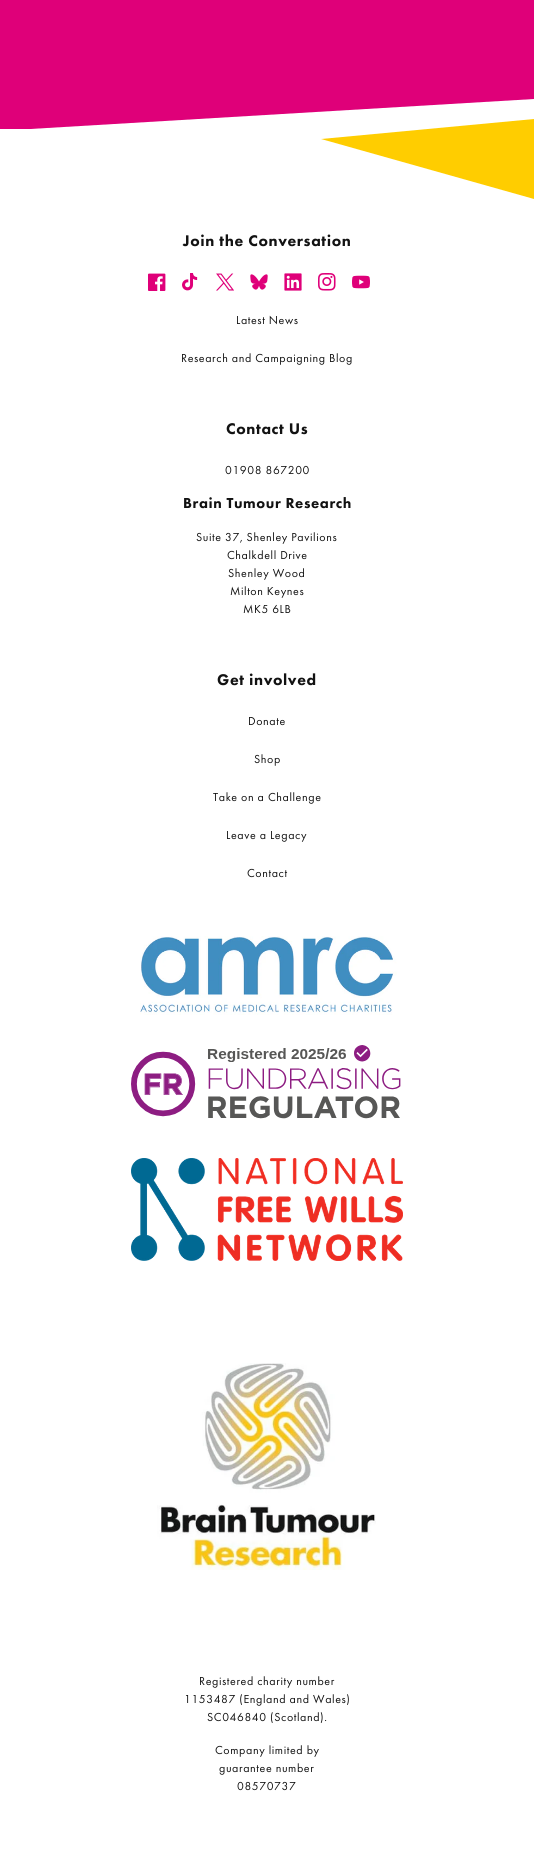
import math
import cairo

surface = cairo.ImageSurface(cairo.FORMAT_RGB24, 534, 1862)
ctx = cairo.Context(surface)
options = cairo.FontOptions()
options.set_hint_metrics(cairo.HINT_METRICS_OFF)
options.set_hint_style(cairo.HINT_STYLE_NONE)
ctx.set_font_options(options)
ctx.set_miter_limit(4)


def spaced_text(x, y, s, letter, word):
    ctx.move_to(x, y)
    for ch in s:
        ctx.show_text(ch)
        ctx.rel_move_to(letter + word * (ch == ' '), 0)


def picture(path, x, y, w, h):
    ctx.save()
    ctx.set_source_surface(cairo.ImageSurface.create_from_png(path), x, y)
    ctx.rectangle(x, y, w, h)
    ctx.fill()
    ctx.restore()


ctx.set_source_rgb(1, 1, 1)
ctx.paint()
ctx.set_source_rgb(0.875, 0, 0.475)
ctx.rectangle(0, 0, 534, 129)
ctx.fill()
ctx.set_source_rgb(1, 1, 1)
ctx.new_path()
ctx.move_to(534, 99)
ctx.line_to(534, 129)
ctx.line_to(30, 129)
ctx.close_path()
ctx.fill()
ctx.set_source_rgb(1, 0.804, 0)
ctx.new_path()
ctx.move_to(534, 119)
ctx.line_to(534, 199)
ctx.line_to(321, 139)
ctx.close_path()
ctx.fill()
ctx.select_font_face("Futura PT Black")
ctx.set_font_size(16)
ctx.set_source_rgb(0.071, 0.071, 0.071)
spaced_text(183, 246, "Join the Conversation", 0.6, 0)
picture("img1.png", 148, 273, 18, 18)
picture("img2.png", 182, 273, 16, 18)
picture("img3.png", 216, 273, 18, 18)
picture("img4.png", 250, 274, 18, 16)
picture("img5.png", 284, 273, 18, 18)
picture("img6.png", 318, 273, 18, 18)
picture("img7.png", 352, 275, 18, 14)
ctx.select_font_face("Futura PT")
ctx.set_font_size(12)
spaced_text(236, 324, "Latest News", 0.6, 0)
spaced_text(181, 362, "Research and Campaigning Blog", 0.6, 0)
ctx.select_font_face("Futura PT Black")
ctx.set_font_size(16)
spaced_text(226, 434, "Contact Us", 0.6, 0)
ctx.select_font_face("Futura PT")
ctx.set_font_size(12)
spaced_text(225, 474, "01908 867200", 0.6, 0)
ctx.select_font_face("Futura PT Black")
ctx.set_font_size(15)
spaced_text(183, 508, "Brain Tumour Research", 0.6, 0)
ctx.select_font_face("Futura PT")
ctx.set_font_size(12)
spaced_text(196, 541, "Suite 37, Shenley Pavilions", 0.6, 0)
spaced_text(227, 559, "Chalkdell Drive", 0.6, 0)
spaced_text(228, 577, "Shenley Wood", 0.6, 0)
spaced_text(230, 595, "Milton Keynes", 0.6, 0)
spaced_text(243, 613, "MK5 6LB", 0.6, 0)
ctx.select_font_face("Futura PT Black")
ctx.set_font_size(16)
spaced_text(217, 685, "Get involved", 0.6, 0)
ctx.select_font_face("Futura PT")
ctx.set_font_size(12)
spaced_text(248, 725, "Donate", 0.6, 0)
spaced_text(254, 763, "Shop", 0.6, 0)
spaced_text(213, 801, "Take on a Challenge", 0.6, 0)
spaced_text(226, 839, "Leave a Legacy", 0.6, 0)
spaced_text(247, 877, "Contact", 0.6, 0)
picture("img8.png", 140, 936, 257, 79)
picture("img9.png", 131, 1045, 270, 74)
picture("img10.png", 131, 1158, 272, 103)
picture("img11.png", 157, 1363, 219, 207)
spaced_text(199, 1685, "Registered charity number", 0.6, 0)
spaced_text(184, 1703, "1153487 (England and Wales)", 0.6, 0)
spaced_text(207, 1721, "SC046840 (Scotland).", 0.6, 0)
spaced_text(215, 1754, "Company limited by", 0.6, 0)
spaced_text(219, 1772, "guarantee number", 0.6, 0)
spaced_text(237, 1790, "08570737", 0.6, 0)
surface.write_to_png("page.png")
